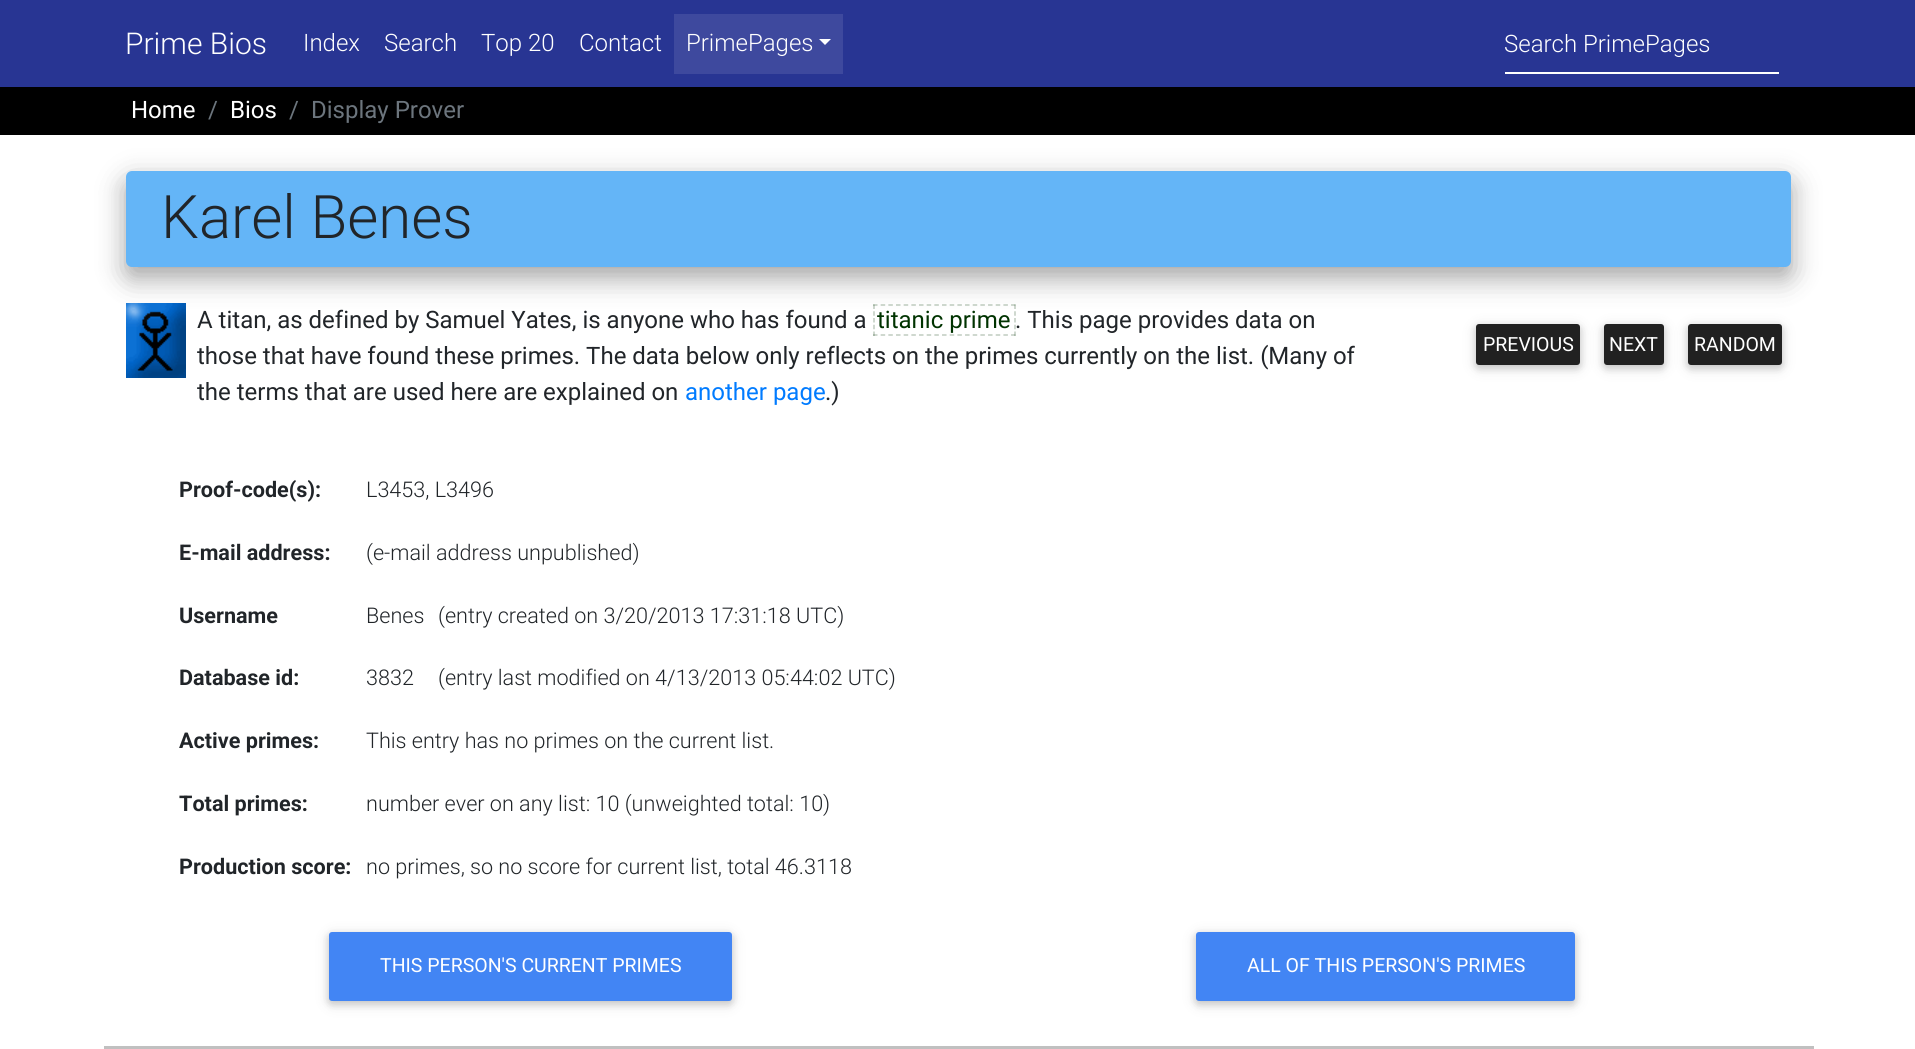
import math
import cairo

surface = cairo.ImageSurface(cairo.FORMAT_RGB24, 1915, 1049)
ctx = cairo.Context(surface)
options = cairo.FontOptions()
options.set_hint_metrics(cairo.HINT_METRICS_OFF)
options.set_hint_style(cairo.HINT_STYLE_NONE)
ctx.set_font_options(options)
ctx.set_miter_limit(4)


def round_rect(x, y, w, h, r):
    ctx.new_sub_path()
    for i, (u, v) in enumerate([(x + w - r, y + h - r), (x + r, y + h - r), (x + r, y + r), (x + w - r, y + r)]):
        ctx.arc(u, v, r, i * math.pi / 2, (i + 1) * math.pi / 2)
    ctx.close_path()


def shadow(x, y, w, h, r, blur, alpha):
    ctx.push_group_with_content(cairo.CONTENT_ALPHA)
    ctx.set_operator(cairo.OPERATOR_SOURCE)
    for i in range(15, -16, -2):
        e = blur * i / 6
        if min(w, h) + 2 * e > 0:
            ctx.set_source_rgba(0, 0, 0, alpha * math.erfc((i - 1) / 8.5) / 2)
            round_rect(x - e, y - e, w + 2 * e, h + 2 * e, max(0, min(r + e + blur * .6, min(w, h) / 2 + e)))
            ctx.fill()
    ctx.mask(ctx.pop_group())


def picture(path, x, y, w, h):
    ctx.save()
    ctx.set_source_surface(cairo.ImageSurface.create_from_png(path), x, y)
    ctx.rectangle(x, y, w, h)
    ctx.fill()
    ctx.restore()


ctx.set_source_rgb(1, 1, 1)
ctx.paint()
ctx.set_source_rgb(0, 0, 0)
ctx.rectangle(0, 87, 1915, 48)
ctx.fill()
ctx.set_source_rgb(0, 0, 0)
shadow(0, 3, 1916, 87, 0, 7.5, 0.12)
ctx.set_source_rgb(0.157, 0.208, 0.576)
ctx.rectangle(0, 0, 1915, 87)
ctx.fill()
ctx.select_font_face("Roboto Light")
ctx.set_font_size(30)
ctx.set_source_rgb(1, 1, 1)
ctx.move_to(125, 54)
ctx.show_text("Prime Bios")
ctx.set_font_size(24)
ctx.move_to(303, 51)
ctx.show_text("Index")
ctx.move_to(384, 51)
ctx.show_text("Search")
ctx.move_to(481, 51)
ctx.show_text("Top 20")
ctx.move_to(579, 51)
ctx.show_text("Contact")
ctx.set_source_rgb(0.243, 0.286, 0.62)
ctx.rectangle(674, 14, 169, 60)
ctx.fill()
ctx.set_source_rgb(1, 1, 1)
ctx.move_to(686, 51)
ctx.show_text("PrimePages")
ctx.new_path()
ctx.move_to(819, 39)
ctx.line_to(831, 39)
ctx.line_to(825, 45)
ctx.close_path()
ctx.fill()
ctx.rectangle(1505, 72, 274, 2)
ctx.fill()
ctx.move_to(1504, 52)
ctx.show_text("Search PrimePages")
ctx.select_font_face("Roboto")
ctx.move_to(131, 118)
ctx.show_text("Home")
ctx.set_source_rgb(0.424, 0.459, 0.49)
ctx.move_to(208, 118)
ctx.show_text("/")
ctx.set_source_rgb(1, 1, 1)
ctx.move_to(230, 118)
ctx.show_text("Bios")
ctx.set_source_rgb(0.424, 0.459, 0.49)
ctx.move_to(289, 118)
ctx.show_text("/")
ctx.move_to(311, 118)
ctx.show_text("Display Prover")
ctx.set_source_rgb(0, 0, 0)
shadow(126, 180, 1665, 96, 6, 15, 0.19)
shadow(126, 183, 1665, 96, 6, 13, 0.2)
ctx.set_source_rgb(0.392, 0.71, 0.965)
round_rect(126, 171, 1665, 96, 6)
ctx.fill()
ctx.select_font_face("Roboto Light")
ctx.set_font_size(60)
ctx.set_source_rgb(0.129, 0.145, 0.161)
ctx.move_to(161, 238)
ctx.show_text("Karel Benes")
picture("img1.png", 126, 303, 60, 75)
ctx.select_font_face("Roboto")
ctx.set_font_size(24)
ctx.move_to(197, 328)
ctx.show_text("A titan, as defined by Samuel Yates, is anyone who has found a")
ctx.set_source_rgb(0, 0.2, 0)
ctx.move_to(877, 328)
ctx.show_text("titanic prime")
ctx.new_path()
ctx.move_to(873, 305)
ctx.line_to(1015.5, 305)
ctx.set_source_rgb(0.741, 0.792, 0.741)
ctx.set_line_width(1.5)
ctx.set_dash([4.5, 3.17])
ctx.stroke()
ctx.new_path()
ctx.move_to(1015, 304.5)
ctx.line_to(1015, 336)
ctx.set_source_rgba(0, 0.2, 0, 0.25)
ctx.set_dash([4.5, 2.25])
ctx.stroke()
ctx.new_path()
ctx.move_to(873, 335)
ctx.line_to(1015.5, 335)
ctx.set_dash([4.5, 3.17])
ctx.stroke()
ctx.new_path()
ctx.move_to(874, 304.5)
ctx.line_to(874, 336)
ctx.set_dash([4.5, 2.25])
ctx.stroke()
ctx.set_source_rgb(0.129, 0.145, 0.161)
ctx.move_to(1015, 328)
ctx.show_text(". This page provides data on")
ctx.move_to(197, 364)
ctx.show_text("those that have found these primes. The data below only reflects on the primes currently on the list. (Many of")
ctx.move_to(197, 400)
ctx.show_text("the terms that are used here are explained on")
ctx.set_source_rgb(0, 0.482, 1)
ctx.move_to(685, 400)
ctx.show_text("another page")
ctx.set_source_rgb(0.129, 0.145, 0.161)
ctx.move_to(825, 400)
ctx.show_text(".)")
ctx.set_source_rgb(0, 0, 0)
shadow(1476, 327, 104, 41, 3, 7.5, 0.12)
shadow(1476, 327, 104, 41, 3, 4, 0.16)
ctx.set_source_rgb(0.129, 0.129, 0.129)
round_rect(1476, 324, 104, 41, 3)
ctx.fill()
ctx.set_font_size(19.5)
ctx.set_source_rgb(1, 1, 1)
ctx.move_to(1483, 351)
ctx.show_text("PREVIOUS")
ctx.set_source_rgb(0, 0, 0)
shadow(1604, 327, 60, 41, 3, 7.5, 0.12)
shadow(1604, 327, 60, 41, 3, 4, 0.16)
ctx.set_source_rgb(0.129, 0.129, 0.129)
round_rect(1604, 324, 60, 41, 3)
ctx.fill()
ctx.set_source_rgb(1, 1, 1)
ctx.move_to(1609, 351)
ctx.show_text("NEXT")
ctx.set_source_rgb(0, 0, 0)
shadow(1688, 327, 94, 41, 3, 7.5, 0.12)
shadow(1688, 327, 94, 41, 3, 4, 0.16)
ctx.set_source_rgb(0.129, 0.129, 0.129)
round_rect(1688, 324, 94, 41, 3)
ctx.fill()
ctx.set_source_rgb(1, 1, 1)
ctx.move_to(1694, 351)
ctx.show_text("RANDOM")
ctx.select_font_face("Roboto", cairo.FONT_SLANT_NORMAL, cairo.FONT_WEIGHT_BOLD)
ctx.set_font_size(21.6)
ctx.set_source_rgb(0.129, 0.145, 0.161)
ctx.move_to(179, 497)
ctx.show_text("Proof-code(s):")
ctx.select_font_face("Roboto Light")
ctx.move_to(366, 497)
ctx.show_text("L3453, L3496")
ctx.select_font_face("Roboto", cairo.FONT_SLANT_NORMAL, cairo.FONT_WEIGHT_BOLD)
ctx.move_to(179, 560)
ctx.show_text("E-mail address:")
ctx.select_font_face("Roboto Light")
ctx.move_to(366, 560)
ctx.show_text("(e-mail address unpublished)")
ctx.select_font_face("Roboto", cairo.FONT_SLANT_NORMAL, cairo.FONT_WEIGHT_BOLD)
ctx.move_to(179, 623)
ctx.show_text("Username")
ctx.select_font_face("Roboto Light")
ctx.move_to(366, 623)
ctx.show_text("Benes")
ctx.move_to(438, 623)
ctx.show_text("(entry created on 3/20/2013 17:31:18 UTC)")
ctx.select_font_face("Roboto", cairo.FONT_SLANT_NORMAL, cairo.FONT_WEIGHT_BOLD)
ctx.move_to(179, 685)
ctx.show_text("Database id:")
ctx.select_font_face("Roboto Light")
ctx.move_to(366, 685)
ctx.show_text("3832")
ctx.move_to(438, 685)
ctx.show_text("(entry last modified on 4/13/2013 05:44:02 UTC)")
ctx.select_font_face("Roboto", cairo.FONT_SLANT_NORMAL, cairo.FONT_WEIGHT_BOLD)
ctx.move_to(179, 748)
ctx.show_text("Active primes:")
ctx.select_font_face("Roboto Light")
ctx.move_to(366, 748)
ctx.show_text("This entry has no primes on the current list.")
ctx.select_font_face("Roboto", cairo.FONT_SLANT_NORMAL, cairo.FONT_WEIGHT_BOLD)
ctx.move_to(179, 811)
ctx.show_text("Total primes:")
ctx.select_font_face("Roboto Light")
ctx.move_to(366, 811)
ctx.show_text("number ever on any list: 10 (unweighted total: 10)")
ctx.select_font_face("Roboto", cairo.FONT_SLANT_NORMAL, cairo.FONT_WEIGHT_BOLD)
ctx.move_to(179, 874)
ctx.show_text("Production score:")
ctx.select_font_face("Roboto Light")
ctx.move_to(366, 874)
ctx.show_text("no primes, so no score for current list, total 46.3118")
ctx.set_source_rgb(0, 0, 0)
shadow(329, 935, 403, 69, 3, 7.5, 0.12)
shadow(329, 935, 403, 69, 3, 4, 0.16)
ctx.set_source_rgb(0.259, 0.522, 0.957)
round_rect(329, 932, 403, 69, 3)
ctx.fill()
ctx.select_font_face("Roboto")
ctx.set_font_size(19.5)
ctx.set_source_rgb(1, 1, 1)
ctx.move_to(380, 972)
ctx.show_text("THIS PERSON'S CURRENT PRIMES")
ctx.set_source_rgb(0, 0, 0)
shadow(1196, 935, 379, 69, 3, 7.5, 0.12)
shadow(1196, 935, 379, 69, 3, 4, 0.16)
ctx.set_source_rgb(0.259, 0.522, 0.957)
round_rect(1196, 932, 379, 69, 3)
ctx.fill()
ctx.set_source_rgb(1, 1, 1)
ctx.move_to(1247, 972)
ctx.show_text("ALL OF THIS PERSON'S PRIMES")
ctx.set_source_rgb(0.753, 0.753, 0.753)
ctx.rectangle(104, 1046, 1710, 3)
ctx.fill()
surface.write_to_png("page.png")
